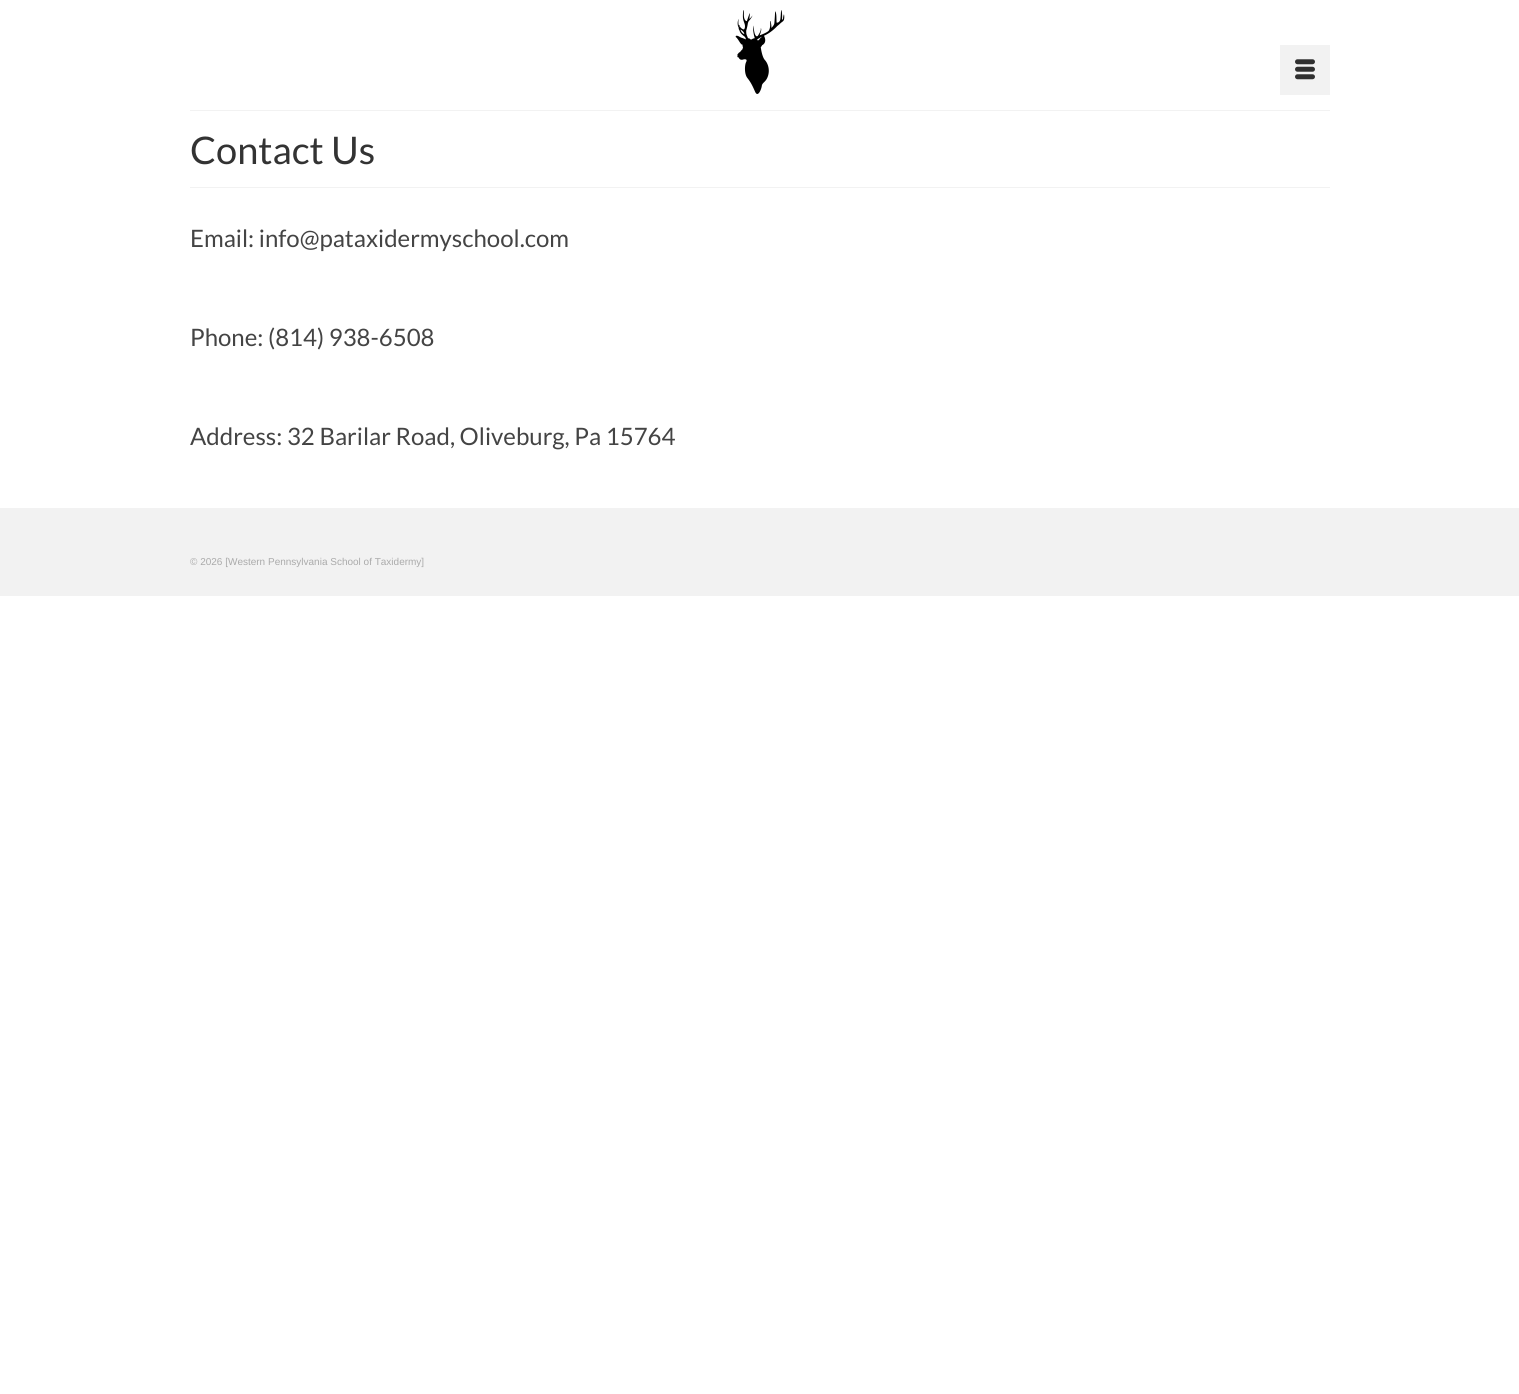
import math
import cairo

surface = cairo.ImageSurface(cairo.FORMAT_RGB24, 1519, 1394)
ctx = cairo.Context(surface)
options = cairo.FontOptions()
options.set_hint_metrics(cairo.HINT_METRICS_OFF)
options.set_hint_style(cairo.HINT_STYLE_NONE)
ctx.set_font_options(options)
ctx.set_miter_limit(4)


def picture(path, x, y, w, h):
    ctx.save()
    ctx.set_source_surface(cairo.ImageSurface.create_from_png(path), x, y)
    ctx.rectangle(x, y, w, h)
    ctx.fill()
    ctx.restore()


ctx.set_source_rgb(1, 1, 1)
ctx.paint()
picture("img1.png", 735, 10, 50, 84)
ctx.set_source_rgb(0.949, 0.949, 0.949)
ctx.rectangle(1280, 45, 50, 50)
ctx.fill()
picture("img2.png", 1295, 59, 20, 21)
ctx.rectangle(190, 110, 1140, 1)
ctx.fill()
ctx.rectangle(190, 187, 1140, 1)
ctx.fill()
ctx.select_font_face("Lato")
ctx.set_font_size(38)
ctx.set_source_rgb(0.2, 0.2, 0.2)
ctx.move_to(190, 164)
ctx.show_text("Contact Us")
ctx.set_font_size(24)
ctx.set_source_rgb(0.267, 0.267, 0.267)
ctx.move_to(190, 247)
ctx.show_text("Email: info@pataxidermyschool.com")
ctx.move_to(190, 346)
ctx.show_text("Phone: (814) 938-6508")
ctx.move_to(190, 445)
ctx.show_text("Address: 32 Barilar Road, Oliveburg, Pa 15764")
ctx.set_source_rgb(0.949, 0.949, 0.949)
ctx.rectangle(0, 508, 1519, 88)
ctx.fill()
ctx.select_font_face("Liberation Sans")
ctx.set_font_size(10)
ctx.set_source_rgb(0.667, 0.667, 0.667)
ctx.move_to(190, 565)
ctx.show_text("© 2026 [Western Pennsylvania School of Taxidermy]")
surface.write_to_png("page.png")
